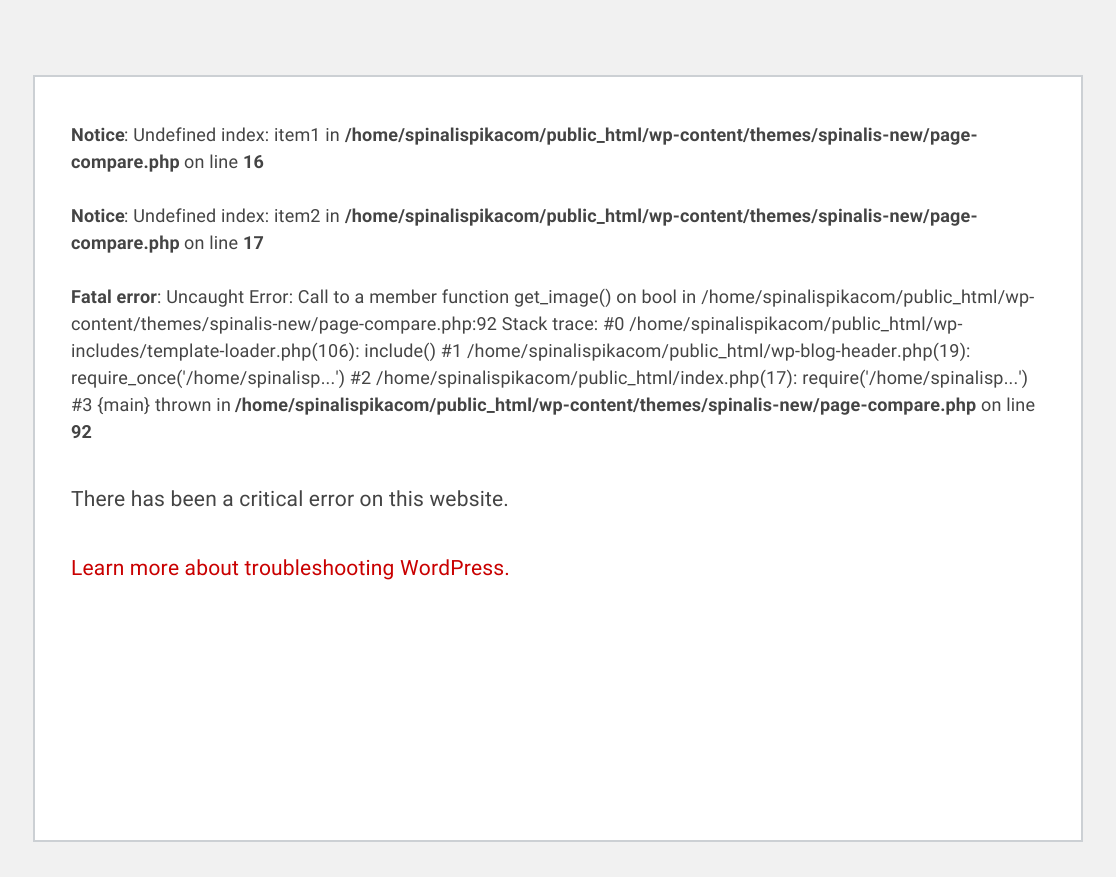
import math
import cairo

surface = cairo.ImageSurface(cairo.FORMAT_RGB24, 1116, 877)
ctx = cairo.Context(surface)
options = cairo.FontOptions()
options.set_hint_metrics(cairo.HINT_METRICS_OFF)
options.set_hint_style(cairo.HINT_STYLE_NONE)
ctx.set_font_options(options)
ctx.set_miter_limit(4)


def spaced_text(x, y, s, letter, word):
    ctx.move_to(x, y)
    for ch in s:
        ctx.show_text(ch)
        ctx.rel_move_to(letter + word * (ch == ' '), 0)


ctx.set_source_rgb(0.945, 0.945, 0.945)
ctx.paint()
ctx.set_source_rgb(1, 1, 1)
ctx.rectangle(34, 76, 1048, 765)
ctx.fill_preserve()
ctx.set_source_rgb(0.8, 0.816, 0.831)
ctx.stroke()
ctx.select_font_face("Roboto", cairo.FONT_SLANT_NORMAL, cairo.FONT_WEIGHT_BOLD)
ctx.set_font_size(18)
ctx.set_source_rgb(0.267, 0.267, 0.267)
spaced_text(71, 141, "Notice", 0.18, 0)
ctx.select_font_face("Roboto")
spaced_text(124, 141, ": Undefined index: item1 in", 0.18, 0)
ctx.select_font_face("Roboto", cairo.FONT_SLANT_NORMAL, cairo.FONT_WEIGHT_BOLD)
spaced_text(345, 141, "/home/spinalispikacom/public_html/wp-content/themes/spinalis-new/page-", 0.18, 0)
spaced_text(71, 168, "compare.php", 0.18, 0)
ctx.select_font_face("Roboto")
spaced_text(184, 168, "on line", 0.18, 0)
ctx.select_font_face("Roboto", cairo.FONT_SLANT_NORMAL, cairo.FONT_WEIGHT_BOLD)
spaced_text(243, 168, "16", 0.18, 0)
spaced_text(71, 222, "Notice", 0.18, 0)
ctx.select_font_face("Roboto")
spaced_text(124, 222, ": Undefined index: item2 in", 0.18, 0)
ctx.select_font_face("Roboto", cairo.FONT_SLANT_NORMAL, cairo.FONT_WEIGHT_BOLD)
spaced_text(345, 222, "/home/spinalispikacom/public_html/wp-content/themes/spinalis-new/page-", 0.18, 0)
spaced_text(71, 249, "compare.php", 0.18, 0)
ctx.select_font_face("Roboto")
spaced_text(184, 249, "on line", 0.18, 0)
ctx.select_font_face("Roboto", cairo.FONT_SLANT_NORMAL, cairo.FONT_WEIGHT_BOLD)
spaced_text(243, 249, "17", 0.18, 0)
spaced_text(71, 303, "Fatal error", 0.18, 0)
ctx.select_font_face("Roboto")
spaced_text(157, 303, ": Uncaught Error: Call to a member function get_image() on bool in /home/spinalispikacom/public_html/wp-", 0.18, 0)
spaced_text(71, 330, "content/themes/spinalis-new/page-compare.php:92 Stack trace: #0 /home/spinalispikacom/public_html/wp-", 0.18, 0)
spaced_text(71, 357, "includes/template-loader.php(106): include() #1 /home/spinalispikacom/public_html/wp-blog-header.php(19):", 0.18, 0)
spaced_text(71, 384, "require_once('/home/spinalisp...') #2 /home/spinalispikacom/public_html/index.php(17): require('/home/spinalisp...')", 0.18, 0)
spaced_text(71, 411, "#3 {main} thrown in", 0.18, 0)
ctx.select_font_face("Roboto", cairo.FONT_SLANT_NORMAL, cairo.FONT_WEIGHT_BOLD)
spaced_text(235, 411, "/home/spinalispikacom/public_html/wp-content/themes/spinalis-new/page-compare.php", 0.18, 0)
ctx.select_font_face("Roboto")
spaced_text(981, 411, "on line", 0.18, 0)
ctx.select_font_face("Roboto", cairo.FONT_SLANT_NORMAL, cairo.FONT_WEIGHT_BOLD)
spaced_text(71, 438, "92", 0.18, 0)
ctx.select_font_face("Roboto")
ctx.set_font_size(21)
spaced_text(71, 506, "There has been a critical error on this website.", 0.18, 0)
ctx.set_source_rgb(0.788, 0, 0)
spaced_text(71, 575, "Learn more about troubleshooting WordPress.", 0.18, 0)
surface.write_to_png("page.png")
